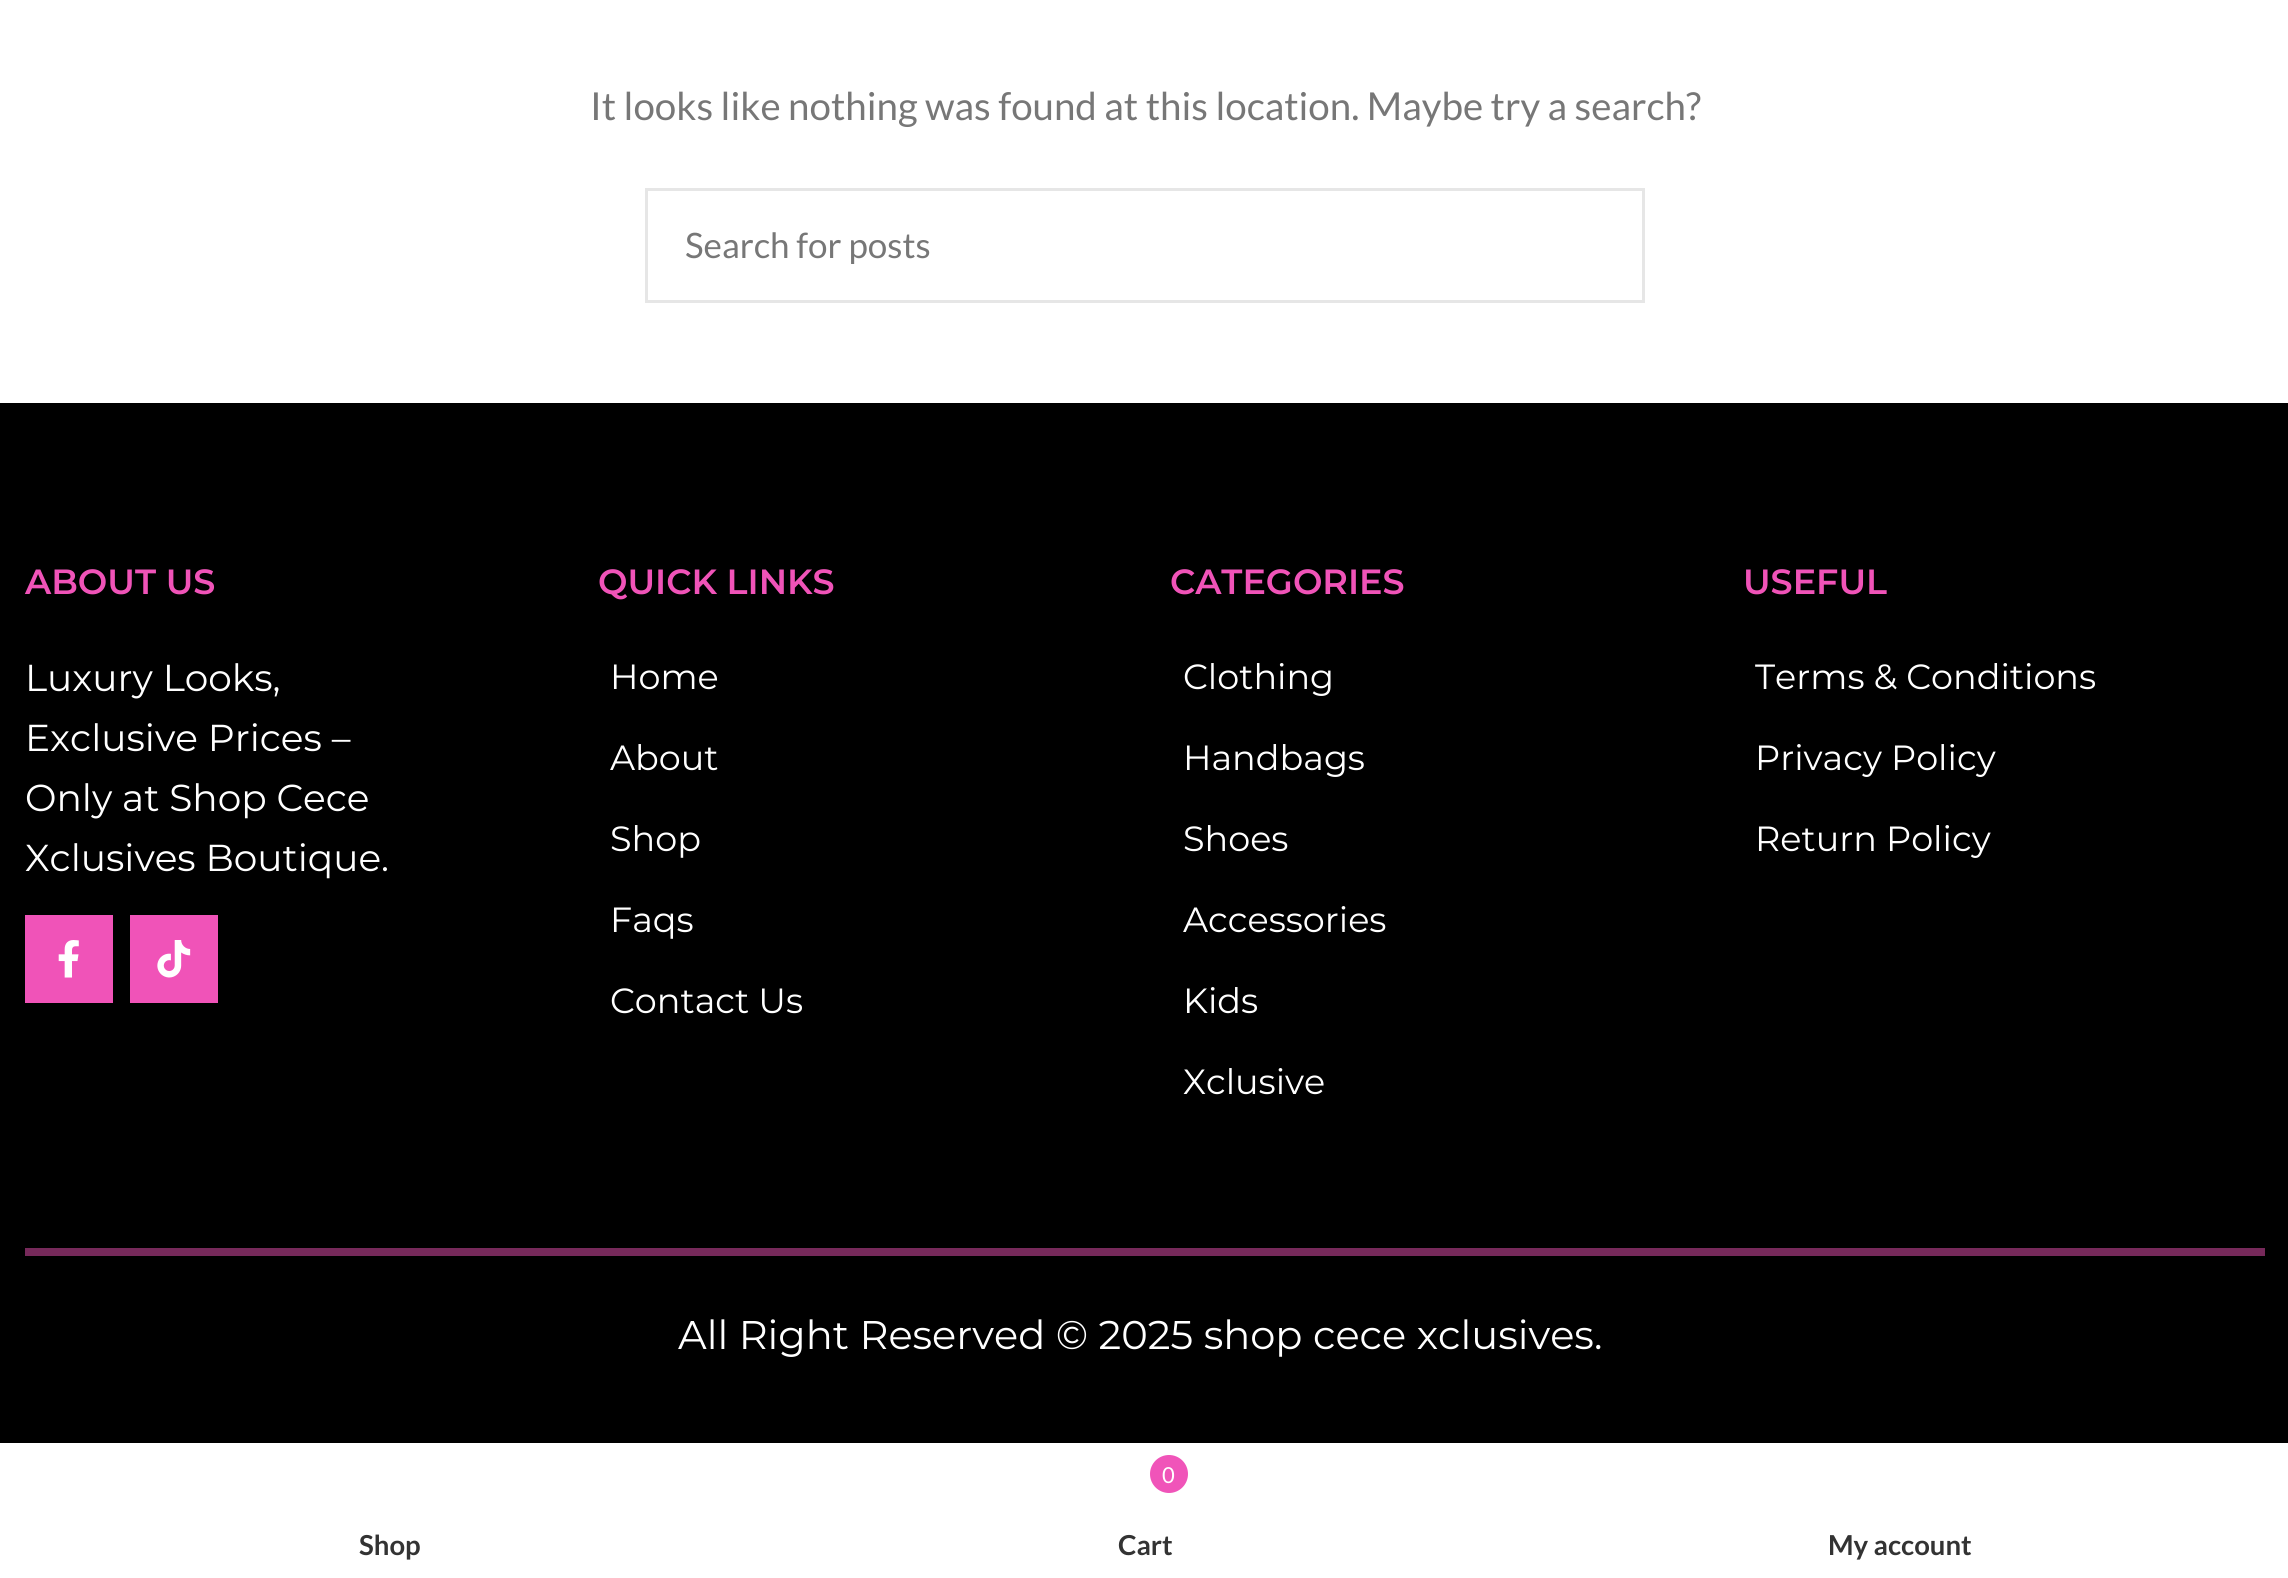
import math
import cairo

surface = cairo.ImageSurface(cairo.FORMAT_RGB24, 2288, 1578)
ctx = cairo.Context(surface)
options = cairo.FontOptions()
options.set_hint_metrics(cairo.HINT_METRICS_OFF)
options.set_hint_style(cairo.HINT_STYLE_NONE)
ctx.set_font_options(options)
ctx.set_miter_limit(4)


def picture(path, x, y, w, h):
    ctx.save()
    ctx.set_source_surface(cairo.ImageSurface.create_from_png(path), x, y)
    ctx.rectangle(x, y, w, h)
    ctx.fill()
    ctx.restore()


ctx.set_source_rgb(1, 1, 1)
ctx.paint()
ctx.select_font_face("Lato")
ctx.set_font_size(38.5)
ctx.set_source_rgb(0.467, 0.467, 0.467)
ctx.move_to(590, 120)
ctx.show_text("It looks like nothing was found at this location. Maybe try a search?")
ctx.rectangle(646.5, 189.5, 997, 112)
ctx.set_source_rgb(0.902, 0.902, 0.902)
ctx.set_line_width(3)
ctx.stroke()
ctx.set_font_size(35)
ctx.set_source_rgb(0.467, 0.467, 0.467)
ctx.move_to(685, 258)
ctx.show_text("Search for posts")
ctx.set_source_rgb(0, 0, 0)
ctx.rectangle(0, 403, 2288, 1040)
ctx.fill()
ctx.select_font_face("Montserrat SemiBold")
ctx.set_source_rgb(0.941, 0.325, 0.722)
ctx.move_to(25, 594)
ctx.show_text("ABOUT US")
ctx.select_font_face("Montserrat")
ctx.set_font_size(37.5)
ctx.set_source_rgb(1, 1, 1)
ctx.move_to(25, 691)
ctx.show_text("Luxury Looks,")
ctx.move_to(25, 751)
ctx.show_text("Exclusive Prices –")
ctx.move_to(25, 811)
ctx.show_text("Only at Shop Cece")
ctx.move_to(25, 871)
ctx.show_text("Xclusives Boutique.")
ctx.set_source_rgb(0.941, 0.325, 0.722)
ctx.rectangle(25, 915, 88, 88)
ctx.fill()
picture("img1.png", 58, 940, 21, 38)
ctx.rectangle(130, 915, 88, 88)
ctx.fill()
picture("img2.png", 157, 940, 34, 38)
ctx.select_font_face("Montserrat SemiBold")
ctx.set_font_size(35)
ctx.move_to(598, 594)
ctx.show_text("QUICK LINKS")
ctx.select_font_face("Montserrat")
ctx.set_source_rgb(1, 1, 1)
ctx.move_to(610, 689)
ctx.show_text("Home")
ctx.move_to(610, 770)
ctx.show_text("About")
ctx.move_to(610, 851)
ctx.show_text("Shop")
ctx.move_to(610, 932)
ctx.show_text("Faqs")
ctx.move_to(610, 1013)
ctx.show_text("Contact Us")
ctx.select_font_face("Montserrat SemiBold")
ctx.set_source_rgb(0.941, 0.325, 0.722)
ctx.move_to(1170, 594)
ctx.show_text("CATEGORIES")
ctx.select_font_face("Montserrat")
ctx.set_source_rgb(1, 1, 1)
ctx.move_to(1183, 689)
ctx.show_text("Clothing")
ctx.move_to(1183, 770)
ctx.show_text("Handbags")
ctx.move_to(1183, 851)
ctx.show_text("Shoes")
ctx.move_to(1183, 932)
ctx.show_text("Accessories")
ctx.move_to(1183, 1013)
ctx.show_text("Kids")
ctx.move_to(1183, 1094)
ctx.show_text("Xclusive")
ctx.select_font_face("Montserrat SemiBold")
ctx.set_source_rgb(0.941, 0.325, 0.722)
ctx.move_to(1743, 594)
ctx.show_text("USEFUL")
ctx.select_font_face("Montserrat")
ctx.set_source_rgb(1, 1, 1)
ctx.move_to(1755, 689)
ctx.show_text("Terms & Conditions")
ctx.move_to(1755, 770)
ctx.show_text("Privacy Policy")
ctx.move_to(1755, 851)
ctx.show_text("Return Policy")
ctx.set_source_rgb(0.463, 0.161, 0.353)
ctx.rectangle(25, 1248, 2240, 8)
ctx.fill()
ctx.set_font_size(40)
ctx.set_source_rgb(1, 1, 1)
ctx.move_to(678, 1349)
ctx.show_text("All Right Reserved © 2025 shop cece xclusives.")
ctx.select_font_face("Lato", cairo.FONT_SLANT_NORMAL, cairo.FONT_WEIGHT_BOLD)
ctx.set_font_size(27.5)
ctx.set_source_rgb(0.2, 0.2, 0.2)
ctx.move_to(359, 1555)
ctx.show_text("Shop")
ctx.set_source_rgb(0.941, 0.329, 0.725)
ctx.new_path()
ctx.arc(1169, 1474, 19, 0, 2 * math.pi)
ctx.fill()
ctx.select_font_face("Lato")
ctx.set_font_size(22)
ctx.set_source_rgb(1, 1, 1)
ctx.move_to(1162, 1483)
ctx.show_text("0")
ctx.select_font_face("Lato", cairo.FONT_SLANT_NORMAL, cairo.FONT_WEIGHT_BOLD)
ctx.set_font_size(27.5)
ctx.set_source_rgb(0.2, 0.2, 0.2)
ctx.move_to(1118, 1555)
ctx.show_text("Cart")
ctx.move_to(1828, 1555)
ctx.show_text("My account")
surface.write_to_png("page.png")
